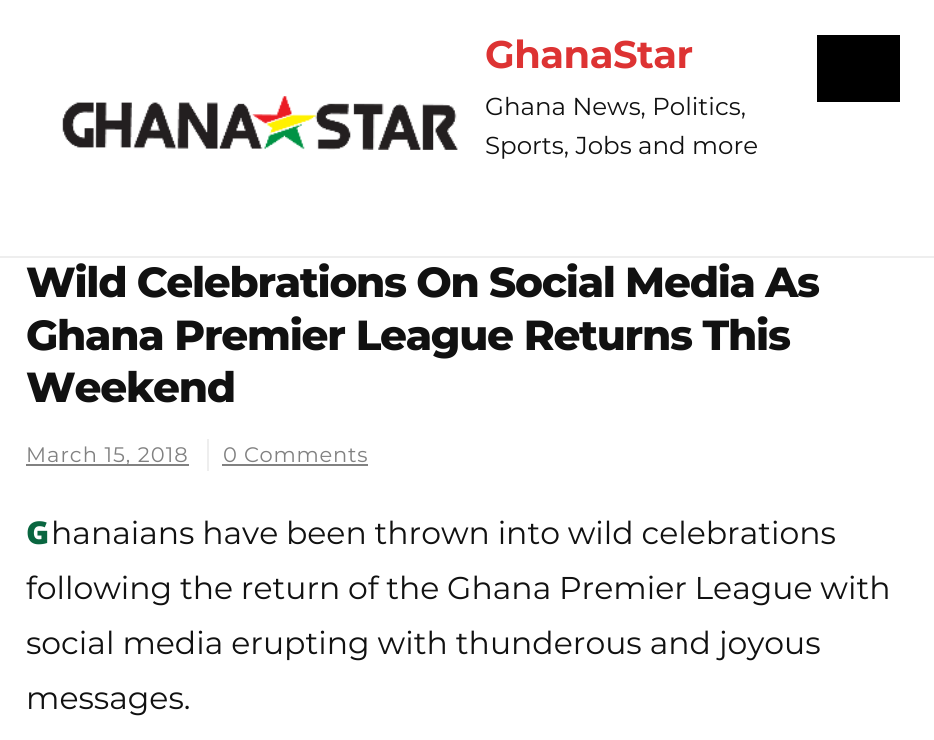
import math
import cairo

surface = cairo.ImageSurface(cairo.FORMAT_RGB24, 934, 740)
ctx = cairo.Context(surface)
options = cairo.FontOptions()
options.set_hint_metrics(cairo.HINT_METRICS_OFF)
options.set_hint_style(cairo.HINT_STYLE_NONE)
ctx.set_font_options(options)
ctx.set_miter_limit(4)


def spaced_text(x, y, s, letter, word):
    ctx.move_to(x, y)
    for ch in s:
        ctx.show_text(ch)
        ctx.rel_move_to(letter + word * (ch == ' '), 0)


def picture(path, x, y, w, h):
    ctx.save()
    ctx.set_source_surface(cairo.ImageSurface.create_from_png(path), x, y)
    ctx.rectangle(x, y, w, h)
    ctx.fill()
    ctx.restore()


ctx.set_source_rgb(1, 1, 1)
ctx.paint()
ctx.set_source_rgb(0.933, 0.933, 0.933)
ctx.rectangle(0, 256, 934, 2)
ctx.fill()
picture("img1.png", 62, 96, 396, 54)
ctx.select_font_face("Montserrat", cairo.FONT_SLANT_NORMAL, cairo.FONT_WEIGHT_BOLD)
ctx.set_font_size(38.5)
ctx.set_source_rgb(0.867, 0.2, 0.2)
spaced_text(485, 68, "GhanaStar", -0.5, 0)
ctx.select_font_face("Montserrat")
ctx.set_font_size(24.5)
ctx.set_source_rgb(0.067, 0.067, 0.067)
ctx.move_to(485, 115)
ctx.show_text("Ghana News, Politics,")
ctx.move_to(485, 154)
ctx.show_text("Sports, Jobs and more")
ctx.set_source_rgb(0, 0, 0)
ctx.rectangle(817, 35, 83, 67)
ctx.fill()
ctx.select_font_face("Montserrat ExtraBold")
ctx.set_font_size(42)
ctx.set_source_rgb(0.067, 0.067, 0.067)
spaced_text(26, 297, "Wild Celebrations On Social Media As", -1.25, -0.5)
spaced_text(26, 350, "Ghana Premier League Returns This", -1.25, 0)
spaced_text(26, 402, "Weekend", -1.25, 0)
ctx.set_source_rgb(0.933, 0.933, 0.933)
ctx.rectangle(207, 439, 2, 32)
ctx.fill()
ctx.set_source_rgb(0.506, 0.506, 0.506)
ctx.rectangle(26, 464, 163, 2)
ctx.fill()
ctx.select_font_face("Montserrat")
ctx.set_font_size(21)
spaced_text(26, 462, "March 15, 2018", 1, 0)
spaced_text(223, 462, "0 Comments", 0.75, 0)
ctx.rectangle(222, 464, 146, 2)
ctx.fill()
ctx.select_font_face("Noto Sans Black")
ctx.set_font_size(31.5)
ctx.set_source_rgb(0.039, 0.4, 0.251)
ctx.move_to(26, 544)
ctx.show_text("G")
ctx.select_font_face("Montserrat")
ctx.set_source_rgb(0.067, 0.067, 0.067)
spaced_text(51, 544, "hanaians have been thrown into wild celebrations", 0, -0.5)
spaced_text(26, 599, "following the return of the Ghana Premier League with", 0, -0.5)
spaced_text(26, 654, "social media erupting with thunderous and joyous", 0, -0.25)
ctx.move_to(26, 709)
ctx.show_text("messages.")
surface.write_to_png("page.png")
